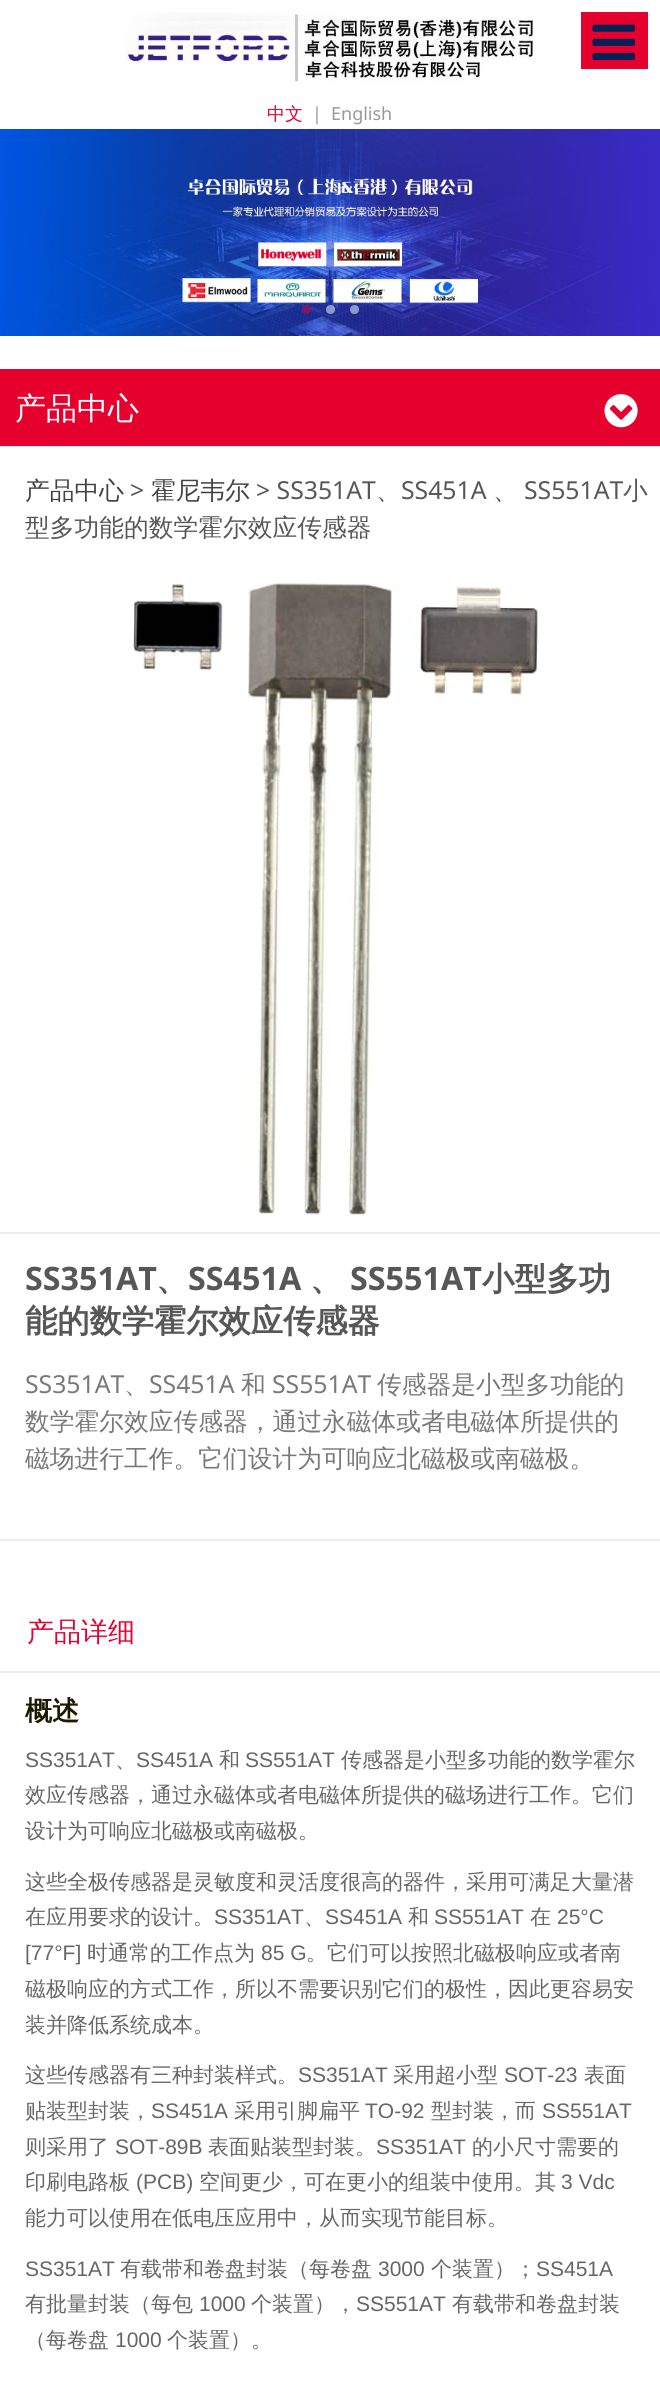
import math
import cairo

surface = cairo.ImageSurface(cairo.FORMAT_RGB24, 660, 2393)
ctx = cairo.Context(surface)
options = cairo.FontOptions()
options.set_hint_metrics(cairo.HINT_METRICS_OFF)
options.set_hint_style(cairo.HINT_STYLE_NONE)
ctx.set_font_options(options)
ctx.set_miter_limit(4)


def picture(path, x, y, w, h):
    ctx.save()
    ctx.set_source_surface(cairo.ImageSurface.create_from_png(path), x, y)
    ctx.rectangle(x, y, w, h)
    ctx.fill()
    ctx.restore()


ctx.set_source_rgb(1, 1, 1)
ctx.paint()
ctx.set_source_rgb(0.902, 0, 0.18)
ctx.rectangle(581, 12, 67, 57)
ctx.fill()
picture("img1.png", 592, 24, 43, 36)
picture("img2.png", 124, 12, 410, 70)
ctx.select_font_face("WenQuanYi Zen Hei Medium")
ctx.set_font_size(18)
ctx.move_to(267, 120)
ctx.show_text("中文")
ctx.select_font_face("Noto Sans")
ctx.set_source_rgb(0.6, 0.6, 0.6)
ctx.move_to(312, 120)
ctx.show_text("|")
ctx.move_to(331, 120)
ctx.show_text("English")
picture("img3.png", 0, 129, 660, 207)
ctx.set_source_rgba(0.902, 0, 0.18, 0.5)
ctx.arc(306.5, 309.5, 4.5, 0, 2 * math.pi)
ctx.fill()
ctx.set_source_rgba(1, 1, 1, 0.5)
ctx.arc(330.5, 309.5, 4.5, 0, 2 * math.pi)
ctx.fill()
ctx.arc(354.5, 309.5, 4.5, 0, 2 * math.pi)
ctx.fill()
ctx.rectangle(1, 370, 658, 76)
ctx.set_source_rgb(0.929, 0.929, 0.929)
ctx.stroke()
ctx.set_source_rgb(0.902, 0, 0.18)
ctx.rectangle(0, 369, 660, 77)
ctx.fill()
ctx.select_font_face("WenQuanYi Zen Hei Medium")
ctx.set_font_size(31)
ctx.set_source_rgb(1, 1, 1)
ctx.move_to(15, 419)
ctx.show_text("产品中心")
picture("img4.png", 604, 394, 34, 34)
ctx.set_font_size(24.75)
ctx.set_source_rgb(0.263, 0.263, 0.263)
ctx.move_to(25, 499)
ctx.show_text("产品中心")
ctx.select_font_face("Noto Sans")
ctx.set_source_rgb(0.341, 0.341, 0.341)
ctx.move_to(130, 499)
ctx.show_text(">")
ctx.select_font_face("WenQuanYi Zen Hei Medium")
ctx.set_source_rgb(0.263, 0.263, 0.263)
ctx.move_to(151, 499)
ctx.show_text("霍尼韦尔")
ctx.select_font_face("Noto Sans")
ctx.set_source_rgb(0.341, 0.341, 0.341)
ctx.move_to(256, 499)
ctx.show_text("> SS351AT")
ctx.move_to(401, 499)
ctx.show_text("SS451A")
ctx.move_to(524, 499)
ctx.show_text("SS551AT")
ctx.select_font_face("WenQuanYi Zen Hei Medium")
ctx.move_to(623, 499)
ctx.show_text("小")
ctx.move_to(376, 499)
ctx.show_text("、")
ctx.move_to(493, 499)
ctx.show_text("、")
ctx.move_to(25, 536)
ctx.show_text("型多功能的数学霍尔效应传感器")
picture("img5.png", 132, 582, 406, 635)
ctx.set_source_rgb(0.929, 0.929, 0.929)
ctx.rectangle(0, 1232, 660, 2)
ctx.fill()
ctx.rectangle(0, 1539, 660, 2)
ctx.fill()
ctx.select_font_face("Noto Sans", cairo.FONT_SLANT_NORMAL, cairo.FONT_WEIGHT_BOLD)
ctx.set_font_size(32.25)
ctx.set_source_rgb(0.341, 0.341, 0.341)
ctx.move_to(25, 1290)
ctx.show_text("SS351AT")
ctx.select_font_face("WenQuanYi Zen Hei", cairo.FONT_SLANT_NORMAL, cairo.FONT_WEIGHT_BOLD)
ctx.move_to(156, 1290)
ctx.show_text("、")
ctx.select_font_face("Noto Sans", cairo.FONT_SLANT_NORMAL, cairo.FONT_WEIGHT_BOLD)
ctx.move_to(188, 1290)
ctx.show_text("SS451A")
ctx.select_font_face("WenQuanYi Zen Hei", cairo.FONT_SLANT_NORMAL, cairo.FONT_WEIGHT_BOLD)
ctx.move_to(310, 1290)
ctx.show_text("、")
ctx.select_font_face("Noto Sans", cairo.FONT_SLANT_NORMAL, cairo.FONT_WEIGHT_BOLD)
ctx.move_to(350, 1290)
ctx.show_text("SS551AT")
ctx.select_font_face("WenQuanYi Zen Hei", cairo.FONT_SLANT_NORMAL, cairo.FONT_WEIGHT_BOLD)
ctx.move_to(482, 1290)
ctx.show_text("小型多功")
ctx.move_to(25, 1332)
ctx.show_text("能的数学霍尔效应传感器")
ctx.select_font_face("Noto Sans")
ctx.set_font_size(24.75)
ctx.set_source_rgb(0.475, 0.475, 0.475)
ctx.move_to(25, 1393)
ctx.show_text("SS351AT")
ctx.select_font_face("WenQuanYi Zen Hei Medium")
ctx.move_to(124, 1393)
ctx.show_text("、")
ctx.select_font_face("Noto Sans")
ctx.move_to(149, 1393)
ctx.show_text("SS451A")
ctx.select_font_face("WenQuanYi Zen Hei Medium")
ctx.move_to(241, 1393)
ctx.show_text("和")
ctx.select_font_face("Noto Sans")
ctx.move_to(272, 1393)
ctx.show_text("SS551AT")
ctx.select_font_face("WenQuanYi Zen Hei Medium")
ctx.move_to(377, 1393)
ctx.show_text("传感器是小型多功能的")
ctx.move_to(25, 1430)
ctx.show_text("数学霍尔效应传感器，通过永磁体或者电磁体所提供的")
ctx.move_to(25, 1467)
ctx.show_text("磁场进行工作。它们设计为可响应北磁极或南磁极。")
ctx.set_source_rgb(0.922, 0.922, 0.922)
ctx.rectangle(0, 1671, 660, 2)
ctx.fill()
ctx.set_font_size(27)
ctx.set_source_rgb(0.902, 0, 0.18)
ctx.move_to(27, 1641)
ctx.show_text("产品详细")
ctx.select_font_face("WenQuanYi Zen Hei", cairo.FONT_SLANT_NORMAL, cairo.FONT_WEIGHT_BOLD)
ctx.set_source_rgb(0.098, 0.102, 0)
ctx.move_to(25, 1720)
ctx.show_text("概述")
ctx.select_font_face("Liberation Sans")
ctx.set_font_size(21)
ctx.set_source_rgb(0.4, 0.4, 0.4)
ctx.move_to(25, 1767)
ctx.show_text("SS351AT")
ctx.select_font_face("WenQuanYi Zen Hei Medium")
ctx.move_to(115, 1767)
ctx.show_text("、")
ctx.select_font_face("Liberation Sans")
ctx.move_to(136, 1767)
ctx.show_text("SS451A")
ctx.select_font_face("WenQuanYi Zen Hei Medium")
ctx.move_to(219, 1767)
ctx.show_text("和")
ctx.select_font_face("Liberation Sans")
ctx.move_to(245, 1767)
ctx.show_text("SS551AT")
ctx.select_font_face("WenQuanYi Zen Hei Medium")
ctx.move_to(341, 1767)
ctx.show_text("传感器是小型多功能的数学霍尔")
ctx.move_to(25, 1802)
ctx.show_text("效应传感器，通过永磁体或者电磁体所提供的磁场进行工作。它们")
ctx.move_to(25, 1838)
ctx.show_text("设计为可响应北磁极或南磁极。")
ctx.move_to(25, 1889)
ctx.show_text("这些全极传感器是灵敏度和灵活度很高的器件，采用可满足大量潜")
ctx.move_to(25, 1924)
ctx.show_text("在应用要求的设计。")
ctx.select_font_face("Liberation Sans")
ctx.move_to(214, 1924)
ctx.show_text("SS351AT")
ctx.select_font_face("WenQuanYi Zen Hei Medium")
ctx.move_to(304, 1924)
ctx.show_text("、")
ctx.select_font_face("Liberation Sans")
ctx.move_to(325, 1924)
ctx.show_text("SS451A")
ctx.select_font_face("WenQuanYi Zen Hei Medium")
ctx.move_to(408, 1924)
ctx.show_text("和")
ctx.select_font_face("Liberation Sans")
ctx.move_to(434, 1924)
ctx.show_text("SS551AT")
ctx.select_font_face("WenQuanYi Zen Hei Medium")
ctx.move_to(530, 1924)
ctx.show_text("在")
ctx.select_font_face("Liberation Sans")
ctx.move_to(557, 1924)
ctx.show_text("25°C")
ctx.move_to(25, 1960)
ctx.show_text("[77°F]")
ctx.select_font_face("WenQuanYi Zen Hei Medium")
ctx.move_to(87, 1960)
ctx.show_text("时通常的工作点为")
ctx.select_font_face("Liberation Sans")
ctx.move_to(261, 1960)
ctx.show_text("85 G")
ctx.select_font_face("WenQuanYi Zen Hei Medium")
ctx.move_to(306, 1960)
ctx.show_text("。它们可以按照北磁极响应或者南")
ctx.move_to(25, 1996)
ctx.show_text("磁极响应的方式工作，所以不需要识别它们的极性，因此更容易安")
ctx.move_to(25, 2032)
ctx.show_text("装并降低系统成本。")
ctx.move_to(25, 2082)
ctx.show_text("这些传感器有三种封装样式。")
ctx.select_font_face("Liberation Sans")
ctx.move_to(298, 2082)
ctx.show_text("SS351AT")
ctx.select_font_face("WenQuanYi Zen Hei Medium")
ctx.move_to(393, 2082)
ctx.show_text("采用超小型")
ctx.select_font_face("Liberation Sans")
ctx.move_to(504, 2082)
ctx.show_text("SOT-23")
ctx.select_font_face("WenQuanYi Zen Hei Medium")
ctx.move_to(584, 2082)
ctx.show_text("表面")
ctx.move_to(25, 2118)
ctx.show_text("贴装型封装，")
ctx.select_font_face("Liberation Sans")
ctx.move_to(151, 2118)
ctx.show_text("SS451A")
ctx.select_font_face("WenQuanYi Zen Hei Medium")
ctx.move_to(234, 2118)
ctx.show_text("采用引脚扁平")
ctx.select_font_face("Liberation Sans")
ctx.move_to(365, 2118)
ctx.show_text("TO-92")
ctx.select_font_face("WenQuanYi Zen Hei Medium")
ctx.move_to(431, 2118)
ctx.show_text("型封装，而")
ctx.select_font_face("Liberation Sans")
ctx.move_to(542, 2118)
ctx.show_text("SS551AT")
ctx.select_font_face("WenQuanYi Zen Hei Medium")
ctx.move_to(25, 2154)
ctx.show_text("则采用了")
ctx.select_font_face("Liberation Sans")
ctx.move_to(115, 2154)
ctx.show_text("SOT-89B")
ctx.select_font_face("WenQuanYi Zen Hei Medium")
ctx.move_to(208, 2154)
ctx.show_text("表面贴装型封装。")
ctx.select_font_face("Liberation Sans")
ctx.move_to(376, 2154)
ctx.show_text("SS351AT")
ctx.select_font_face("WenQuanYi Zen Hei Medium")
ctx.move_to(472, 2154)
ctx.show_text("的小尺寸需要的")
ctx.move_to(25, 2189)
ctx.show_text("印刷电路板")
ctx.select_font_face("Liberation Sans")
ctx.move_to(136, 2189)
ctx.show_text("(PCB)")
ctx.select_font_face("WenQuanYi Zen Hei Medium")
ctx.move_to(199, 2189)
ctx.show_text("空间更少，可在更小的组装中使用。其")
ctx.select_font_face("Liberation Sans")
ctx.move_to(561, 2189)
ctx.show_text("3 Vdc")
ctx.select_font_face("WenQuanYi Zen Hei Medium")
ctx.move_to(25, 2225)
ctx.show_text("能力可以使用在低电压应用中，从而实现节能目标。")
ctx.select_font_face("Liberation Sans")
ctx.move_to(25, 2276)
ctx.show_text("SS351AT")
ctx.select_font_face("WenQuanYi Zen Hei Medium")
ctx.move_to(120, 2276)
ctx.show_text("有载带和卷盘封装（每卷盘")
ctx.select_font_face("Liberation Sans")
ctx.move_to(378, 2276)
ctx.show_text("3000")
ctx.select_font_face("WenQuanYi Zen Hei Medium")
ctx.move_to(431, 2276)
ctx.show_text("个装置）；")
ctx.select_font_face("Liberation Sans")
ctx.move_to(536, 2276)
ctx.show_text("SS451A")
ctx.select_font_face("WenQuanYi Zen Hei Medium")
ctx.move_to(25, 2311)
ctx.show_text("有批量封装（每包")
ctx.select_font_face("Liberation Sans")
ctx.move_to(199, 2311)
ctx.show_text("1000")
ctx.select_font_face("WenQuanYi Zen Hei Medium")
ctx.move_to(251, 2311)
ctx.show_text("个装置），")
ctx.select_font_face("Liberation Sans")
ctx.move_to(356, 2311)
ctx.show_text("SS551AT")
ctx.select_font_face("WenQuanYi Zen Hei Medium")
ctx.move_to(452, 2311)
ctx.show_text("有载带和卷盘封装")
ctx.move_to(25, 2347)
ctx.show_text("（每卷盘")
ctx.select_font_face("Liberation Sans")
ctx.move_to(115, 2347)
ctx.show_text("1000")
ctx.select_font_face("WenQuanYi Zen Hei Medium")
ctx.move_to(167, 2347)
ctx.show_text("个装置）。")
surface.write_to_png("page.png")
